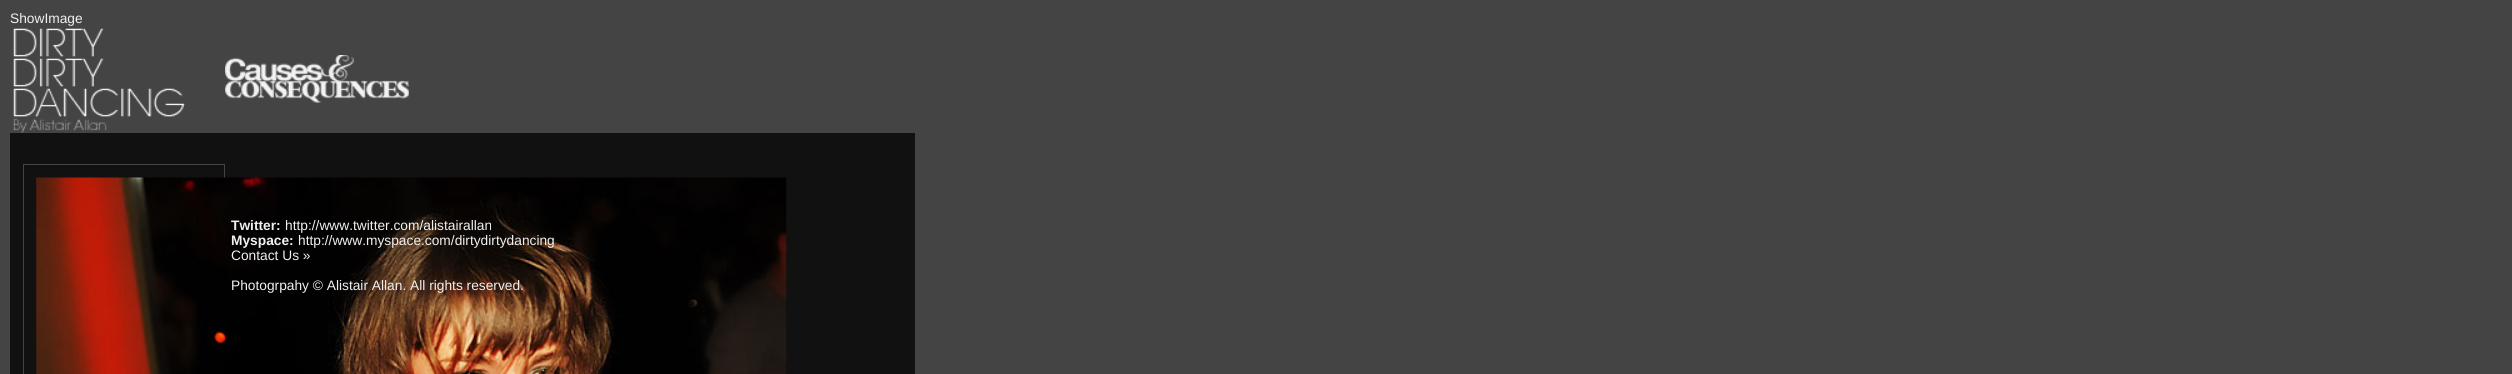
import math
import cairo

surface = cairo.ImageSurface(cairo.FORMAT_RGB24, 2512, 374)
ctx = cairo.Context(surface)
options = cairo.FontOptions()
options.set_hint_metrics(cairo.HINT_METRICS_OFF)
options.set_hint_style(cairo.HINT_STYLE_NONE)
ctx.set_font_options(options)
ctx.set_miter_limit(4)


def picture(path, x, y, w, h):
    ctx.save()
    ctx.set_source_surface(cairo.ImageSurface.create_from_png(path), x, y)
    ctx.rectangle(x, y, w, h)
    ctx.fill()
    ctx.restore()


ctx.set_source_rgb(0.267, 0.267, 0.267)
ctx.paint()
ctx.select_font_face("Liberation Sans")
ctx.set_font_size(13.75)
ctx.set_source_rgb(0.941, 0.941, 0.941)
ctx.move_to(10, 23)
ctx.show_text("ShowImage")
picture("img1.png", 13, 28, 173, 105)
picture("img2.png", 225, 55, 184, 48)
ctx.set_source_rgb(0.067, 0.067, 0.067)
ctx.rectangle(10, 133, 905, 241)
ctx.fill()
ctx.rectangle(23.5, 164.5, 201, 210)
ctx.set_source_rgb(0.267, 0.267, 0.267)
ctx.set_line_width(1)
ctx.stroke()
picture("img3.png", 36, 177, 751, 197)
ctx.select_font_face("Liberation Sans", cairo.FONT_SLANT_NORMAL, cairo.FONT_WEIGHT_BOLD)
ctx.set_source_rgb(0.941, 0.941, 0.941)
ctx.move_to(231, 230)
ctx.show_text("Twitter:")
ctx.select_font_face("Liberation Sans")
ctx.move_to(285, 230)
ctx.show_text("http://www.twitter.com/alistairallan")
ctx.select_font_face("Liberation Sans", cairo.FONT_SLANT_NORMAL, cairo.FONT_WEIGHT_BOLD)
ctx.move_to(231, 245)
ctx.show_text("Myspace:")
ctx.select_font_face("Liberation Sans")
ctx.move_to(298, 245)
ctx.show_text("http://www.myspace.com/dirtydirtydancing")
ctx.move_to(231, 260)
ctx.show_text("Contact Us »")
ctx.move_to(231, 290)
ctx.show_text("Photogrpahy © Alistair Allan. All rights reserved.")
surface.write_to_png("page.png")
